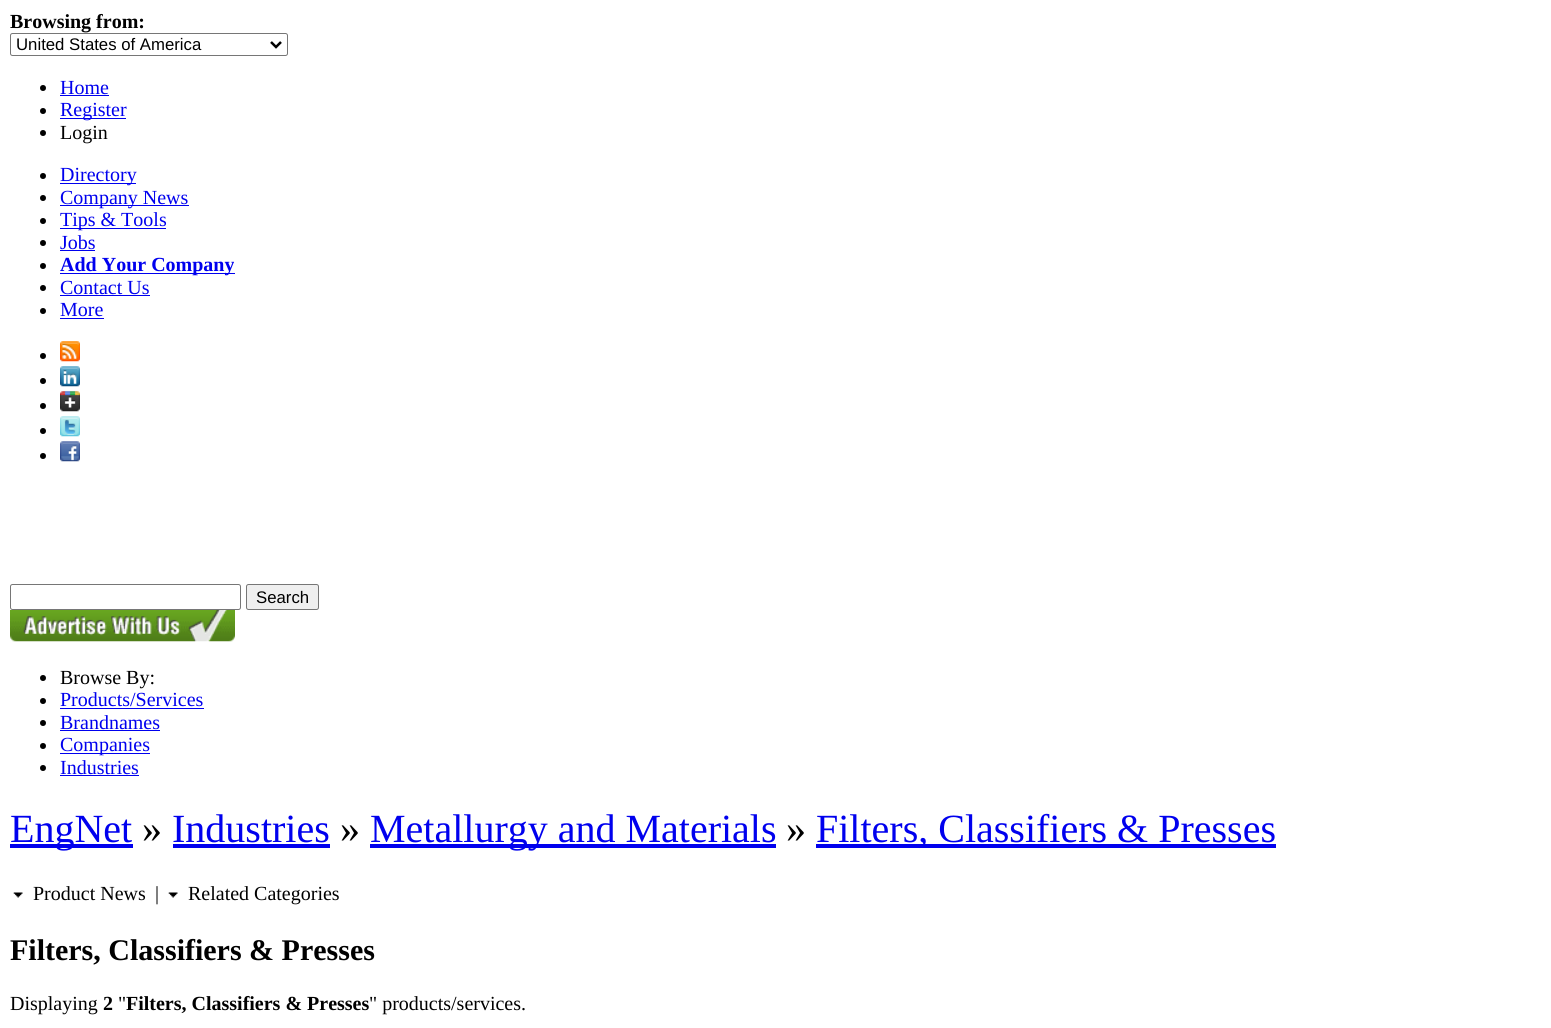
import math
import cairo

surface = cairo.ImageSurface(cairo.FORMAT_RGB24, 1551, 1028)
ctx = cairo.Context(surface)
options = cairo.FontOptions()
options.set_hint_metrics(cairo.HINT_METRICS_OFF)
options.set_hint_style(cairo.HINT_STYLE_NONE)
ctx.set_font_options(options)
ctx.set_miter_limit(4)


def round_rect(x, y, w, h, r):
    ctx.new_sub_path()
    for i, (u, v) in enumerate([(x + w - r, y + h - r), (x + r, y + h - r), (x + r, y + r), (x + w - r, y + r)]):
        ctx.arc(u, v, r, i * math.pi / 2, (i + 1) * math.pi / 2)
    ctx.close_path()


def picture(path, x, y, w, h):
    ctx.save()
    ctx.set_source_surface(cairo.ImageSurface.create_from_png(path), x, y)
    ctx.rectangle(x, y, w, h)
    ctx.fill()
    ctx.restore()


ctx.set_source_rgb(1, 1, 1)
ctx.paint()
ctx.select_font_face("Liberation Serif", cairo.FONT_SLANT_NORMAL, cairo.FONT_WEIGHT_BOLD)
ctx.set_font_size(20)
ctx.set_source_rgb(0, 0, 0)
ctx.move_to(10, 28)
ctx.show_text("Browsing from:")
round_rect(10.5, 33.5, 277, 22, 2)
ctx.set_source_rgb(0.463, 0.463, 0.463)
ctx.set_line_width(1)
ctx.stroke()
ctx.new_path()
ctx.move_to(271, 42)
ctx.line_to(276, 47)
ctx.line_to(281, 42)
ctx.set_source_rgb(0, 0, 0)
ctx.set_line_width(2.5)
ctx.stroke()
ctx.select_font_face("Liberation Sans")
ctx.set_font_size(16.75)
ctx.move_to(16, 50)
ctx.show_text("United States of America")
ctx.new_path()
ctx.arc(43, 88, 3, 0, 2 * math.pi)
ctx.fill()
ctx.select_font_face("Liberation Serif")
ctx.set_font_size(20)
ctx.set_source_rgb(0, 0, 0.933)
ctx.move_to(60, 94)
ctx.show_text("Home")
ctx.rectangle(60, 95, 49, 1)
ctx.fill()
ctx.set_source_rgb(0, 0, 0)
ctx.arc(43, 111, 3, 0, 2 * math.pi)
ctx.fill()
ctx.set_source_rgb(0, 0, 0.933)
ctx.rectangle(60, 118, 66, 1)
ctx.fill()
ctx.move_to(60, 116)
ctx.show_text("Register")
ctx.set_source_rgb(0, 0, 0)
ctx.new_path()
ctx.arc(43, 133, 3, 0, 2 * math.pi)
ctx.fill()
ctx.move_to(60, 139)
ctx.show_text("Login")
ctx.new_path()
ctx.arc(43, 176, 3, 0, 2 * math.pi)
ctx.fill()
ctx.set_source_rgb(0, 0, 0.933)
ctx.rectangle(60, 183, 76, 1)
ctx.fill()
ctx.move_to(60, 181)
ctx.show_text("Directory")
ctx.set_source_rgb(0, 0, 0)
ctx.new_path()
ctx.arc(43, 198, 3, 0, 2 * math.pi)
ctx.fill()
ctx.set_source_rgb(0, 0, 0.933)
ctx.rectangle(60, 205, 129, 1)
ctx.fill()
ctx.move_to(60, 204)
ctx.show_text("Company News")
ctx.set_source_rgb(0, 0, 0)
ctx.new_path()
ctx.arc(43, 221, 3, 0, 2 * math.pi)
ctx.fill()
ctx.set_source_rgb(0, 0, 0.933)
ctx.rectangle(60, 228, 106, 1)
ctx.fill()
ctx.move_to(60, 226)
ctx.show_text("Tips & Tools")
ctx.set_source_rgb(0, 0, 0)
ctx.new_path()
ctx.arc(43, 243, 3, 0, 2 * math.pi)
ctx.fill()
ctx.set_source_rgb(0, 0, 0.933)
ctx.move_to(60, 249)
ctx.show_text("Jobs")
ctx.rectangle(60, 250, 35, 1)
ctx.fill()
ctx.set_source_rgb(0, 0, 0)
ctx.arc(43, 266, 3, 0, 2 * math.pi)
ctx.fill()
ctx.set_source_rgb(0, 0, 0.933)
ctx.rectangle(60, 273, 175, 1)
ctx.fill()
ctx.select_font_face("Liberation Serif", cairo.FONT_SLANT_NORMAL, cairo.FONT_WEIGHT_BOLD)
ctx.move_to(60, 271)
ctx.show_text("Add Your Company")
ctx.set_source_rgb(0, 0, 0)
ctx.new_path()
ctx.arc(43, 288, 3, 0, 2 * math.pi)
ctx.fill()
ctx.select_font_face("Liberation Serif")
ctx.set_source_rgb(0, 0, 0.933)
ctx.move_to(60, 294)
ctx.show_text("Contact Us")
ctx.rectangle(60, 295, 90, 1)
ctx.fill()
ctx.set_source_rgb(0, 0, 0)
ctx.arc(43, 311, 3, 0, 2 * math.pi)
ctx.fill()
ctx.set_source_rgb(0, 0, 0.933)
ctx.move_to(60, 316)
ctx.show_text("More")
ctx.rectangle(60, 318, 44, 1)
ctx.fill()
ctx.set_source_rgb(0, 0, 0)
ctx.arc(43, 356, 3, 0, 2 * math.pi)
ctx.fill()
picture("img1.png", 60, 341, 20, 21)
ctx.arc(43, 381, 3, 0, 2 * math.pi)
ctx.fill()
picture("img2.png", 60, 366, 20, 21)
ctx.arc(43, 406, 3, 0, 2 * math.pi)
ctx.fill()
picture("img3.png", 60, 391, 20, 21)
ctx.arc(43, 431, 3, 0, 2 * math.pi)
ctx.fill()
picture("img4.png", 60, 416, 20, 21)
ctx.arc(43, 456, 3, 0, 2 * math.pi)
ctx.fill()
picture("img5.png", 60, 441, 20, 21)
round_rect(10.5, 584.5, 230, 25, 2)
ctx.set_source_rgb(0.463, 0.463, 0.463)
ctx.set_line_width(1)
ctx.stroke()
ctx.set_source_rgb(0.937, 0.937, 0.937)
round_rect(246.5, 584.5, 72, 25, 2)
ctx.fill_preserve()
ctx.set_source_rgb(0.463, 0.463, 0.463)
ctx.stroke()
ctx.select_font_face("Liberation Sans")
ctx.set_font_size(16.75)
ctx.set_source_rgb(0, 0, 0)
ctx.move_to(256, 603)
ctx.show_text("Search")
picture("img6.png", 10, 610, 225, 32)
ctx.arc(43, 678, 3, 0, 2 * math.pi)
ctx.fill()
ctx.select_font_face("Liberation Serif")
ctx.set_font_size(20)
ctx.move_to(60, 684)
ctx.show_text("Browse By:")
ctx.new_path()
ctx.arc(43, 701, 3, 0, 2 * math.pi)
ctx.fill()
ctx.set_source_rgb(0, 0, 0.933)
ctx.move_to(60, 706)
ctx.show_text("Products/Services")
ctx.rectangle(60, 708, 144, 1)
ctx.fill()
ctx.set_source_rgb(0, 0, 0)
ctx.arc(43, 723, 3, 0, 2 * math.pi)
ctx.fill()
ctx.set_source_rgb(0, 0, 0.933)
ctx.move_to(60, 729)
ctx.show_text("Brandnames")
ctx.rectangle(60, 730, 100, 1)
ctx.fill()
ctx.set_source_rgb(0, 0, 0)
ctx.arc(43, 746, 3, 0, 2 * math.pi)
ctx.fill()
ctx.set_source_rgb(0, 0, 0.933)
ctx.rectangle(60, 753, 90, 1)
ctx.fill()
ctx.move_to(60, 751)
ctx.show_text("Companies")
ctx.set_source_rgb(0, 0, 0)
ctx.new_path()
ctx.arc(43, 768, 3, 0, 2 * math.pi)
ctx.fill()
ctx.set_source_rgb(0, 0, 0.933)
ctx.move_to(60, 774)
ctx.show_text("Industries")
ctx.rectangle(60, 775, 79, 1)
ctx.fill()
ctx.rectangle(10, 844, 123, 4)
ctx.fill()
ctx.set_font_size(40)
ctx.move_to(10, 842)
ctx.show_text("EngNet")
ctx.set_source_rgb(0, 0, 0)
ctx.move_to(142, 842)
ctx.show_text("»")
ctx.set_source_rgb(0, 0, 0.933)
ctx.move_to(172, 842)
ctx.show_text("Industries")
ctx.rectangle(173, 844, 157, 4)
ctx.fill()
ctx.set_source_rgb(0, 0, 0)
ctx.move_to(340, 842)
ctx.show_text("»")
ctx.set_source_rgb(0, 0, 0.933)
ctx.rectangle(370, 844, 406, 4)
ctx.fill()
ctx.move_to(370, 842)
ctx.show_text("Metallurgy and Materials")
ctx.set_source_rgb(0, 0, 0)
ctx.move_to(786, 842)
ctx.show_text("»")
ctx.set_source_rgb(0, 0, 0.933)
ctx.rectangle(816, 844, 460, 4)
ctx.fill()
ctx.move_to(816, 842)
ctx.show_text("Filters, Classifiers & Presses")
picture("img7.png", 13, 892, 10, 6)
ctx.set_font_size(20)
ctx.set_source_rgb(0, 0, 0)
ctx.move_to(33, 900)
ctx.show_text("Product News")
ctx.move_to(155, 900)
ctx.show_text("|")
picture("img7.png", 168, 892, 10, 6)
ctx.move_to(188, 900)
ctx.show_text("Related Categories")
ctx.select_font_face("Liberation Serif", cairo.FONT_SLANT_NORMAL, cairo.FONT_WEIGHT_BOLD)
ctx.set_font_size(30)
ctx.move_to(10, 960)
ctx.show_text("Filters, Classifiers & Presses")
ctx.select_font_face("Liberation Serif")
ctx.set_font_size(20)
ctx.move_to(10, 1010)
ctx.show_text("Displaying")
ctx.select_font_face("Liberation Serif", cairo.FONT_SLANT_NORMAL, cairo.FONT_WEIGHT_BOLD)
ctx.move_to(103, 1010)
ctx.show_text("2")
ctx.select_font_face("Liberation Serif")
ctx.move_to(118, 1010)
ctx.show_text("\"")
ctx.select_font_face("Liberation Serif", cairo.FONT_SLANT_NORMAL, cairo.FONT_WEIGHT_BOLD)
ctx.move_to(126, 1010)
ctx.show_text("Filters, Classifiers & Presses")
ctx.select_font_face("Liberation Serif")
ctx.move_to(369, 1010)
ctx.show_text("\" products/services.")
surface.write_to_png("page.png")
